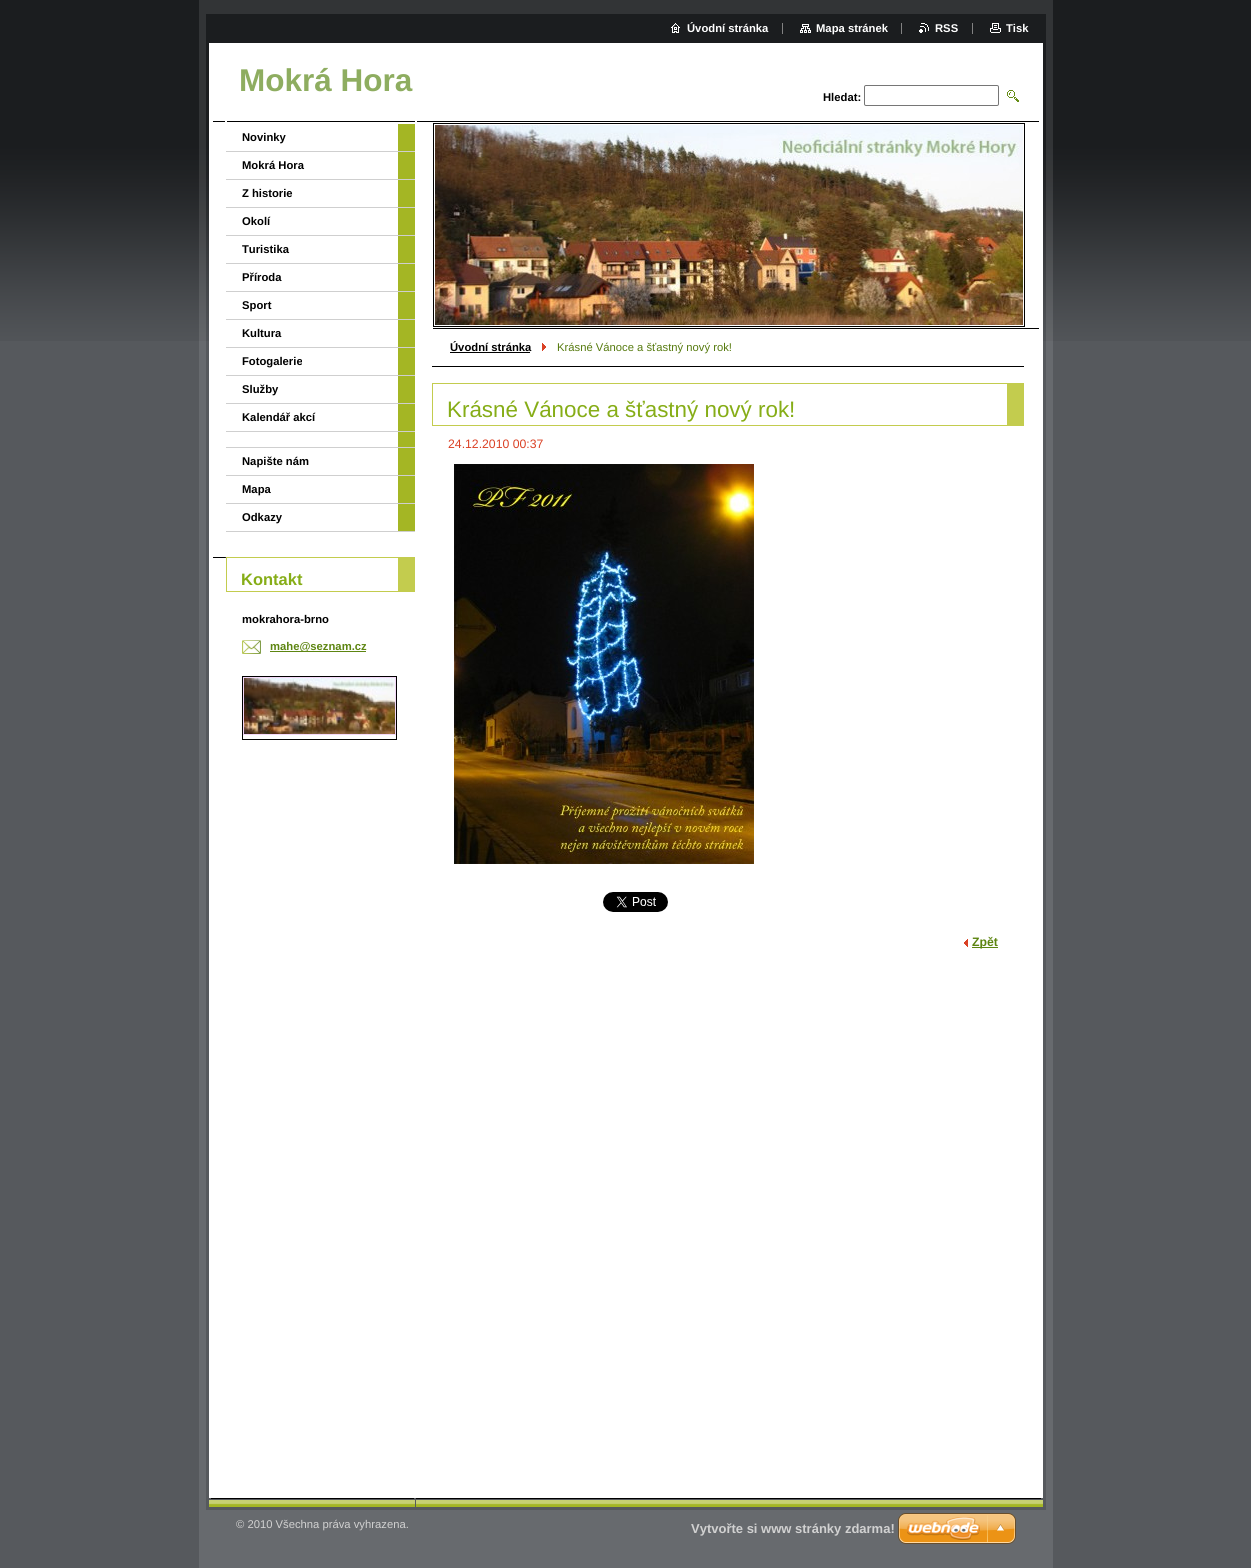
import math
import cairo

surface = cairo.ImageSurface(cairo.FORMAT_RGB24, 1251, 1568)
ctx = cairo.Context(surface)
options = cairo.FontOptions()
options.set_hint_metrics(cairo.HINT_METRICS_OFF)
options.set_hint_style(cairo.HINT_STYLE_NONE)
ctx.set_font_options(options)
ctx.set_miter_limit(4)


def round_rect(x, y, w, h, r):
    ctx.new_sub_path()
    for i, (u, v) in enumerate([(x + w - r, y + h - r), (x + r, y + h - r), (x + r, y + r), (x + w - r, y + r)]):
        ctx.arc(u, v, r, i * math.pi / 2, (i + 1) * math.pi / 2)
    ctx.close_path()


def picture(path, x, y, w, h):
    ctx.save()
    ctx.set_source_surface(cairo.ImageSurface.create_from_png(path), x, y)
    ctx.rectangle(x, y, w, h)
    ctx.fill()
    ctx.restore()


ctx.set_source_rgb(0.337, 0.349, 0.365)
ctx.paint()
picture("img1.png", 0, 0, 1251, 341)
ctx.set_source_rgb(0.404, 0.416, 0.431)
ctx.rectangle(199, 341, 854, 1227)
ctx.fill()
picture("img2.png", 206, 341, 840, 1157)
picture("img3.png", 199, 0, 854, 341)
ctx.set_source_rgb(1, 1, 1)
ctx.rectangle(209, 43, 834, 298)
ctx.fill()
picture("img4.png", 671, 23, 9, 10)
ctx.select_font_face("Liberation Sans", cairo.FONT_SLANT_NORMAL, cairo.FONT_WEIGHT_BOLD)
ctx.set_font_size(11.25)
ctx.move_to(687, 32)
ctx.show_text("Úvodní stránka")
picture("img5.png", 800, 24, 11, 9)
ctx.move_to(816, 32)
ctx.show_text("Mapa stránek")
ctx.set_source_rgb(0.51, 0.51, 0.51)
ctx.rectangle(782, 23, 1, 11)
ctx.fill()
picture("img6.png", 919, 23, 10, 10)
ctx.set_source_rgb(1, 1, 1)
ctx.move_to(935, 32)
ctx.show_text("RSS")
ctx.set_source_rgb(0.51, 0.51, 0.51)
ctx.rectangle(901, 23, 1, 11)
ctx.fill()
picture("img7.png", 990, 23, 11, 10)
ctx.set_source_rgb(1, 1, 1)
ctx.move_to(1006, 32)
ctx.show_text("Tisk")
ctx.set_source_rgb(0.51, 0.51, 0.51)
ctx.rectangle(972, 23, 1, 11)
ctx.fill()
ctx.set_font_size(31.5)
ctx.set_source_rgb(0.557, 0.678, 0.376)
ctx.move_to(239, 91)
ctx.show_text("Mokrá Hora")
ctx.set_font_size(11.25)
ctx.set_source_rgb(0, 0, 0)
ctx.move_to(823, 101)
ctx.show_text("Hledat:")
round_rect(864.5, 85.5, 134, 20, 1.5)
ctx.set_source_rgb(0.463, 0.463, 0.463)
ctx.set_line_width(1)
ctx.stroke()
picture("img8.png", 1007, 90, 12, 12)
picture("img9.png", 213, 121, 202, 1)
ctx.set_source_rgb(0.643, 0.714, 0.141)
ctx.rectangle(398, 124, 17, 407)
ctx.fill()
ctx.set_source_rgb(0.812, 0.812, 0.812)
ctx.rectangle(226, 151, 189, 1)
ctx.fill()
ctx.set_source_rgb(0, 0, 0)
ctx.move_to(242, 141)
ctx.show_text("Novinky")
ctx.set_source_rgb(0.812, 0.812, 0.812)
ctx.rectangle(226, 179, 189, 1)
ctx.fill()
ctx.set_source_rgb(0, 0, 0)
ctx.move_to(242, 169)
ctx.show_text("Mokrá Hora")
ctx.set_source_rgb(0.812, 0.812, 0.812)
ctx.rectangle(226, 207, 189, 1)
ctx.fill()
ctx.set_source_rgb(0, 0, 0)
ctx.move_to(242, 197)
ctx.show_text("Z historie")
ctx.set_source_rgb(0.812, 0.812, 0.812)
ctx.rectangle(226, 235, 189, 1)
ctx.fill()
ctx.set_source_rgb(0, 0, 0)
ctx.move_to(242, 225)
ctx.show_text("Okolí")
ctx.set_source_rgb(0.812, 0.812, 0.812)
ctx.rectangle(226, 263, 189, 1)
ctx.fill()
ctx.set_source_rgb(0, 0, 0)
ctx.move_to(242, 253)
ctx.show_text("Turistika")
ctx.set_source_rgb(0.812, 0.812, 0.812)
ctx.rectangle(226, 291, 189, 1)
ctx.fill()
ctx.set_source_rgb(0, 0, 0)
ctx.move_to(242, 281)
ctx.show_text("Příroda")
ctx.set_source_rgb(0.812, 0.812, 0.812)
ctx.rectangle(226, 319, 189, 1)
ctx.fill()
ctx.set_source_rgb(0, 0, 0)
ctx.move_to(242, 309)
ctx.show_text("Sport")
ctx.set_source_rgb(0.812, 0.812, 0.812)
ctx.rectangle(226, 347, 189, 1)
ctx.fill()
ctx.set_source_rgb(0, 0, 0)
ctx.move_to(242, 337)
ctx.show_text("Kultura")
ctx.set_source_rgb(0.812, 0.812, 0.812)
ctx.rectangle(226, 375, 189, 1)
ctx.fill()
ctx.set_source_rgb(0, 0, 0)
ctx.move_to(242, 365)
ctx.show_text("Fotogalerie")
ctx.set_source_rgb(0.812, 0.812, 0.812)
ctx.rectangle(226, 403, 189, 1)
ctx.fill()
ctx.set_source_rgb(0, 0, 0)
ctx.move_to(242, 393)
ctx.show_text("Služby")
ctx.set_source_rgb(0.812, 0.812, 0.812)
ctx.rectangle(226, 431, 189, 1)
ctx.fill()
ctx.set_source_rgb(0, 0, 0)
ctx.move_to(242, 421)
ctx.show_text("Kalendář akcí")
ctx.set_source_rgb(0.812, 0.812, 0.812)
ctx.rectangle(226, 447, 189, 1)
ctx.fill()
ctx.rectangle(226, 475, 189, 1)
ctx.fill()
ctx.set_source_rgb(0, 0, 0)
ctx.move_to(242, 465)
ctx.show_text("Napište nám")
ctx.set_source_rgb(0.812, 0.812, 0.812)
ctx.rectangle(226, 503, 189, 1)
ctx.fill()
ctx.set_source_rgb(0, 0, 0)
ctx.move_to(242, 493)
ctx.show_text("Mapa")
ctx.set_source_rgb(0.812, 0.812, 0.812)
ctx.rectangle(226, 531, 189, 1)
ctx.fill()
ctx.set_source_rgb(0, 0, 0)
ctx.move_to(242, 521)
ctx.show_text("Odkazy")
picture("img10.png", 213, 557, 13, 1)
ctx.set_source_rgb(0.765, 0.8, 0.306)
ctx.rectangle(226, 557, 172, 1)
ctx.fill()
ctx.rectangle(398, 557, 17, 34)
ctx.fill()
ctx.rectangle(226, 591, 189, 1)
ctx.fill()
ctx.rectangle(226, 557, 1, 35)
ctx.fill()
ctx.set_font_size(16.5)
ctx.set_source_rgb(0.525, 0.678, 0.09)
ctx.move_to(241, 585)
ctx.show_text("Kontakt")
ctx.set_font_size(11.25)
ctx.set_source_rgb(0, 0, 0)
ctx.move_to(242, 623)
ctx.show_text("mokrahora-brno")
picture("img11.png", 242, 640, 19, 14)
ctx.set_source_rgb(0.365, 0.522, 0.067)
ctx.rectangle(270, 651, 96, 1)
ctx.fill()
ctx.move_to(270, 650)
ctx.show_text("mahe@seznam.cz")
ctx.rectangle(242.5, 676.5, 154, 63)
ctx.set_source_rgb(0, 0, 0)
ctx.stroke()
ctx.rectangle(243.5, 677.5, 152, 57)
ctx.set_source_rgb(0.957, 0.847, 0.969)
ctx.stroke()
picture("img12.png", 244, 678, 151, 56)
ctx.set_source_rgb(0, 0, 0)
ctx.rectangle(417, 121, 622, 1)
ctx.fill()
ctx.rectangle(433, 328, 606, 1)
ctx.fill()
ctx.rectangle(433.5, 123.5, 591, 203)
ctx.stroke()
picture("img13.png", 435, 125, 588, 200)
ctx.rectangle(432, 366, 592, 1)
ctx.fill()
ctx.move_to(450, 351)
ctx.show_text("Úvodní stránka")
ctx.rectangle(450, 352, 80, 1)
ctx.fill()
picture("img14.png", 542, 343, 4, 8)
ctx.select_font_face("Liberation Sans")
ctx.set_source_rgb(0.337, 0.478, 0.055)
ctx.move_to(557, 351)
ctx.show_text("Krásné Vánoce a šťastný nový rok!")
ctx.set_source_rgb(0.765, 0.8, 0.306)
ctx.rectangle(432, 383, 575, 1)
ctx.fill()
ctx.rectangle(1007, 383, 17, 42)
ctx.fill()
ctx.rectangle(432, 425, 592, 1)
ctx.fill()
ctx.rectangle(432, 383, 1, 43)
ctx.fill()
ctx.set_font_size(22.4)
ctx.set_source_rgb(0.525, 0.678, 0.09)
ctx.move_to(447, 417)
ctx.show_text("Krásné Vánoce a šťastný nový rok!")
ctx.set_font_size(12.25)
ctx.set_source_rgb(0.855, 0.255, 0.145)
ctx.move_to(448, 448)
ctx.show_text("24.12.2010 00:37")
picture("img15.png", 454, 464, 300, 400)
picture("img16.png", 603, 892, 65, 20)
picture("img17.png", 964, 939, 4, 8)
ctx.set_source_rgb(0.365, 0.522, 0.067)
ctx.rectangle(972, 947, 26, 1)
ctx.fill()
ctx.select_font_face("Liberation Sans", cairo.FONT_SLANT_NORMAL, cairo.FONT_WEIGHT_BOLD)
ctx.move_to(972, 946)
ctx.show_text("Zpět")
picture("img18.png", 206, 1498, 840, 12)
ctx.save()
ctx.rectangle(236, 1518, 480, 14)
ctx.clip()
ctx.select_font_face("Liberation Sans")
ctx.set_font_size(11.25)
ctx.set_source_rgb(0.82, 0.82, 0.82)
ctx.move_to(236, 1528)
ctx.show_text("© 2010 Všechna práva vyhrazena.")
ctx.restore()
ctx.set_font_size(13)
ctx.set_source_rgb(0.82, 0.82, 0.82)
ctx.move_to(691, 1533)
ctx.show_text("Vytvořte si www stránky zdarma!")
picture("img19.png", 898, 1513, 118, 31)
surface.write_to_png("page.png")
